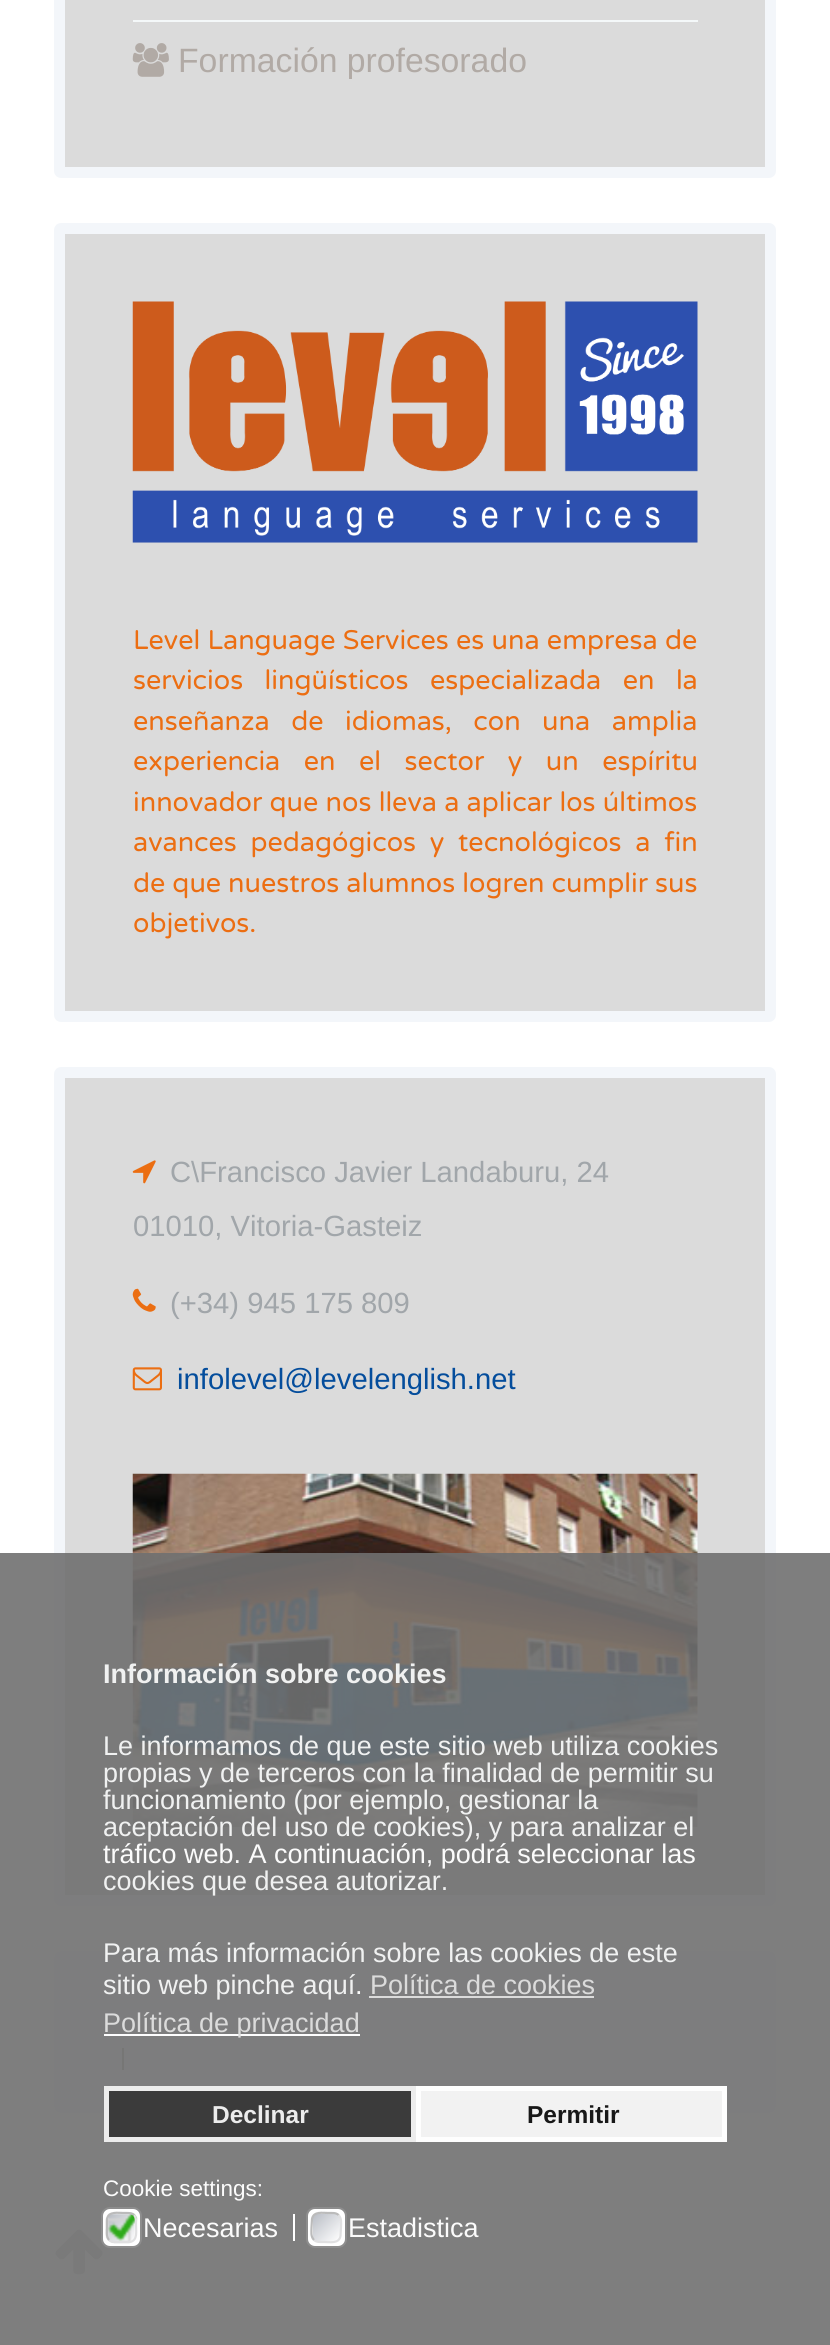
import math
import cairo

surface = cairo.ImageSurface(cairo.FORMAT_RGB24, 830, 2345)
ctx = cairo.Context(surface)
options = cairo.FontOptions()
options.set_hint_metrics(cairo.HINT_METRICS_OFF)
options.set_hint_style(cairo.HINT_STYLE_NONE)
ctx.set_font_options(options)
ctx.set_miter_limit(4)


def spaced_text(x, y, s, letter, word):
    ctx.move_to(x, y)
    for ch in s:
        ctx.show_text(ch)
        ctx.rel_move_to(letter + word * (ch == ' '), 0)


def round_rect(x, y, w, h, r):
    ctx.new_sub_path()
    for i, (u, v) in enumerate([(x + w - r, y + h - r), (x + r, y + h - r), (x + r, y + r), (x + w - r, y + r)]):
        ctx.arc(u, v, r, i * math.pi / 2, (i + 1) * math.pi / 2)
    ctx.close_path()


def picture(path, x, y, w, h):
    ctx.save()
    ctx.set_source_surface(cairo.ImageSurface.create_from_png(path), x, y)
    ctx.rectangle(x, y, w, h)
    ctx.fill()
    ctx.restore()


ctx.set_source_rgb(1, 1, 1)
ctx.paint()
ctx.set_source_rgb(0.859, 0.859, 0.859)
round_rect(59.5, -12.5, 711, 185, 1.5)
ctx.fill_preserve()
ctx.set_source_rgb(0.953, 0.961, 0.98)
ctx.set_line_width(11)
ctx.stroke()
ctx.set_source_rgb(0.957, 0.969, 0.976)
ctx.rectangle(133, 20, 565, 2)
ctx.fill()
picture("img1.png", 132, 43, 37, 34)
ctx.select_font_face("Liberation Sans")
ctx.set_font_size(33.75)
ctx.set_source_rgb(0.694, 0.667, 0.647)
ctx.move_to(178, 72)
ctx.show_text("Formación profesorado")
ctx.set_source_rgb(0.859, 0.859, 0.859)
round_rect(59.5, 228.5, 711, 788, 1.5)
ctx.fill_preserve()
ctx.set_source_rgb(0.953, 0.961, 0.98)
ctx.stroke()
picture("img2.png", 132, 301, 566, 242)
ctx.select_font_face("Varela Round")
ctx.set_font_size(27)
ctx.set_source_rgb(0.922, 0.431, 0.071)
spaced_text(133, 649, "Level Language Services es una empresa de", 0, 0.25)
spaced_text(133, 689, "servicios lingüísticos especializada en la", 0, 14.5)
spaced_text(133, 730, "enseñanza de idiomas, con una amplia", 0, 14.5)
spaced_text(133, 770, "experiencia en el sector y un espíritu", 0, 16.5)
spaced_text(133, 811, "innovador que nos lleva a aplicar los últimos", 0, 0.25)
spaced_text(133, 851, "avances pedagógicos y tecnológicos a fin", 0, 6.75)
ctx.move_to(133, 892)
ctx.show_text("de que nuestros alumnos logren cumplir sus")
ctx.move_to(133, 932)
ctx.show_text("objetivos.")
ctx.set_source_rgb(0.859, 0.859, 0.859)
round_rect(59.5, 1072.5, 711, 828, 1.5)
ctx.fill_preserve()
ctx.set_source_rgb(0.953, 0.961, 0.98)
ctx.stroke()
picture("img3.png", 132, 1160, 24, 24)
ctx.select_font_face("Liberation Sans")
ctx.set_font_size(29.25)
ctx.set_source_rgb(0.631, 0.651, 0.667)
ctx.move_to(170, 1182)
ctx.show_text("C\\Francisco Javier Landaburu, 24")
ctx.move_to(133, 1236)
ctx.show_text("01010, Vitoria-Gasteiz")
picture("img4.png", 132, 1288, 24, 24)
ctx.move_to(170, 1313)
ctx.show_text("(+34) 945 175 809")
picture("img5.png", 132, 1367, 30, 24)
ctx.set_source_rgb(0.016, 0.302, 0.612)
ctx.move_to(177, 1389)
ctx.show_text("infolevel@levelenglish.net")
picture("img6.png", 132, 1473, 566, 354)
ctx.set_source_rgb(0.973, 0.976, 0.984)
round_rect(54, 1951, 722, 162, 7)
ctx.fill()
ctx.set_source_rgb(0.694, 0.667, 0.647)
ctx.rectangle(122, 2048, 2, 22)
ctx.fill()
picture("img7.png", 55, 2229, 48, 46)
ctx.set_source_rgba(0.439, 0.439, 0.439, 0.9)
ctx.rectangle(0, 1553, 830, 792)
ctx.fill()
ctx.select_font_face("Liberation Sans", cairo.FONT_SLANT_NORMAL, cairo.FONT_WEIGHT_BOLD)
ctx.set_font_size(27)
ctx.set_source_rgb(0.941, 0.945, 0.945)
ctx.move_to(103, 1683)
ctx.show_text("Información sobre cookies")
ctx.select_font_face("Liberation Sans")
ctx.move_to(103, 1755)
ctx.show_text("Le informamos de que este sitio web utiliza cookies")
ctx.move_to(103, 1782)
ctx.show_text("propias y de terceros con la finalidad de permitir su")
ctx.move_to(103, 1809)
ctx.show_text("funcionamiento (por ejemplo, gestionar la")
ctx.move_to(103, 1836)
ctx.show_text("aceptación del uso de cookies), y para analizar el")
ctx.set_source_rgb(0.984, 0.984, 0.984)
ctx.move_to(103, 1863)
ctx.show_text("tráfico web. A continuación, podrá seleccionar las")
ctx.set_source_rgb(0.941, 0.945, 0.945)
ctx.move_to(103, 1890)
ctx.show_text("cookies que desea autorizar.")
ctx.move_to(103, 1962)
ctx.show_text("Para más información sobre las cookies de este")
ctx.move_to(103, 1994)
ctx.show_text("sitio web pinche aquí")
ctx.set_source_rgb(0.984, 0.984, 0.984)
ctx.move_to(355, 1994)
ctx.show_text(".")
ctx.set_source_rgb(0.859, 0.859, 0.859)
ctx.move_to(370, 1994)
ctx.show_text("Política de cookies")
ctx.set_source_rgba(1, 1, 1, 0.72)
ctx.rectangle(369, 1996, 225, 2)
ctx.fill()
ctx.set_source_rgb(0.992, 0.992, 0.996)
ctx.rectangle(104, 2034, 256, 2)
ctx.fill()
ctx.set_source_rgb(0.859, 0.859, 0.859)
ctx.move_to(103, 2032)
ctx.show_text("Política de privacidad")
ctx.set_source_rgb(0.231, 0.231, 0.231)
ctx.rectangle(106.5, 2088.5, 307, 51)
ctx.fill_preserve()
ctx.set_source_rgb(0.922, 0.922, 0.922)
ctx.set_line_width(5)
ctx.stroke()
ctx.select_font_face("Liberation Sans", cairo.FONT_SLANT_NORMAL, cairo.FONT_WEIGHT_BOLD)
ctx.set_font_size(24.5)
ctx.move_to(212, 2123)
ctx.show_text("Declinar")
ctx.set_source_rgb(0.949, 0.949, 0.949)
ctx.rectangle(418.5, 2088.5, 306, 51)
ctx.fill_preserve()
ctx.set_source_rgb(0.996, 0.996, 0.996)
ctx.stroke()
ctx.set_source_rgb(0.094, 0.094, 0.094)
ctx.move_to(527, 2123)
ctx.show_text("Permitir")
ctx.select_font_face("Liberation Sans")
ctx.set_font_size(22.5)
ctx.set_source_rgb(0.984, 0.984, 0.984)
ctx.move_to(103, 2196)
ctx.show_text("Cookie settings:")
ctx.set_source_rgb(1, 1, 1)
round_rect(102, 2208, 39, 39, 8)
ctx.fill_preserve()
ctx.set_source_rgb(0.553, 0.553, 0.553)
ctx.set_line_width(2)
ctx.stroke()
picture("img8.png", 105, 2212, 33, 32)
ctx.new_path()
ctx.move_to(134, 2215)
ctx.curve_to(136.5, 2218, 136, 2221.5, 136, 2225)
ctx.curve_to(136, 2231, 138, 2240.5, 130, 2242)
ctx.line_to(121.5, 2242)
ctx.curve_to(117.5, 2242, 112.5, 2243, 109, 2240)
ctx.set_source_rgb(0.878, 0.878, 0.882)
ctx.set_line_width(2.2)
ctx.stroke()
ctx.new_path()
ctx.move_to(109, 2240)
ctx.curve_to(106, 2236.5, 107, 2231.5, 107, 2227.5)
ctx.line_to(107, 2219)
ctx.curve_to(108.5, 2211, 118, 2213, 124, 2213)
ctx.curve_to(127.5, 2213, 131, 2212.5, 134, 2215)
ctx.set_source_rgb(0.733, 0.733, 0.733)
ctx.stroke()
ctx.set_source_rgb(1, 1, 1)
ctx.rectangle(293, 2214, 2, 27)
ctx.fill()
ctx.set_font_size(27)
ctx.set_source_rgb(0.984, 0.984, 0.984)
ctx.move_to(143, 2237)
ctx.show_text("Necesarias")
ctx.set_source_rgb(1, 1, 1)
round_rect(307, 2208, 39, 39, 8)
ctx.fill_preserve()
ctx.set_source_rgb(0.553, 0.553, 0.553)
ctx.set_line_width(2)
ctx.stroke()
ctx.save()
round_rect(311, 2212, 31, 31, 9)
ctx.clip()
gradient = cairo.LinearGradient(313, 2214, 340, 2241)
gradient.add_color_stop_rgba(0, 0.725, 0.741, 0.773, 1)
gradient.add_color_stop_rgba(1, 1, 1, 1, 1)
ctx.set_source(gradient)
ctx.rectangle(313, 2214, 27, 27)
ctx.fill()
ctx.restore()
ctx.new_path()
ctx.move_to(338.5, 2215)
ctx.curve_to(342, 2218.5, 341, 2223.5, 341, 2227.5)
ctx.line_to(340.5, 2236)
ctx.curve_to(339, 2244, 330, 2242, 324, 2242)
ctx.curve_to(320.5, 2242, 316.5, 2242.5, 314, 2240)
ctx.set_source_rgb(0.878, 0.878, 0.882)
ctx.set_line_width(2.2)
ctx.stroke()
ctx.new_path()
ctx.move_to(314, 2240)
ctx.curve_to(310.5, 2236.5, 311.5, 2231.5, 311.5, 2227.5)
ctx.line_to(312, 2219)
ctx.curve_to(313.5, 2211, 322.5, 2213, 328.5, 2213)
ctx.curve_to(332, 2213, 336, 2212.5, 338.5, 2215)
ctx.set_source_rgb(0.733, 0.733, 0.733)
ctx.stroke()
ctx.set_source_rgb(0.984, 0.984, 0.984)
ctx.move_to(348, 2237)
ctx.show_text("Estadistica")
surface.write_to_png("page.png")
